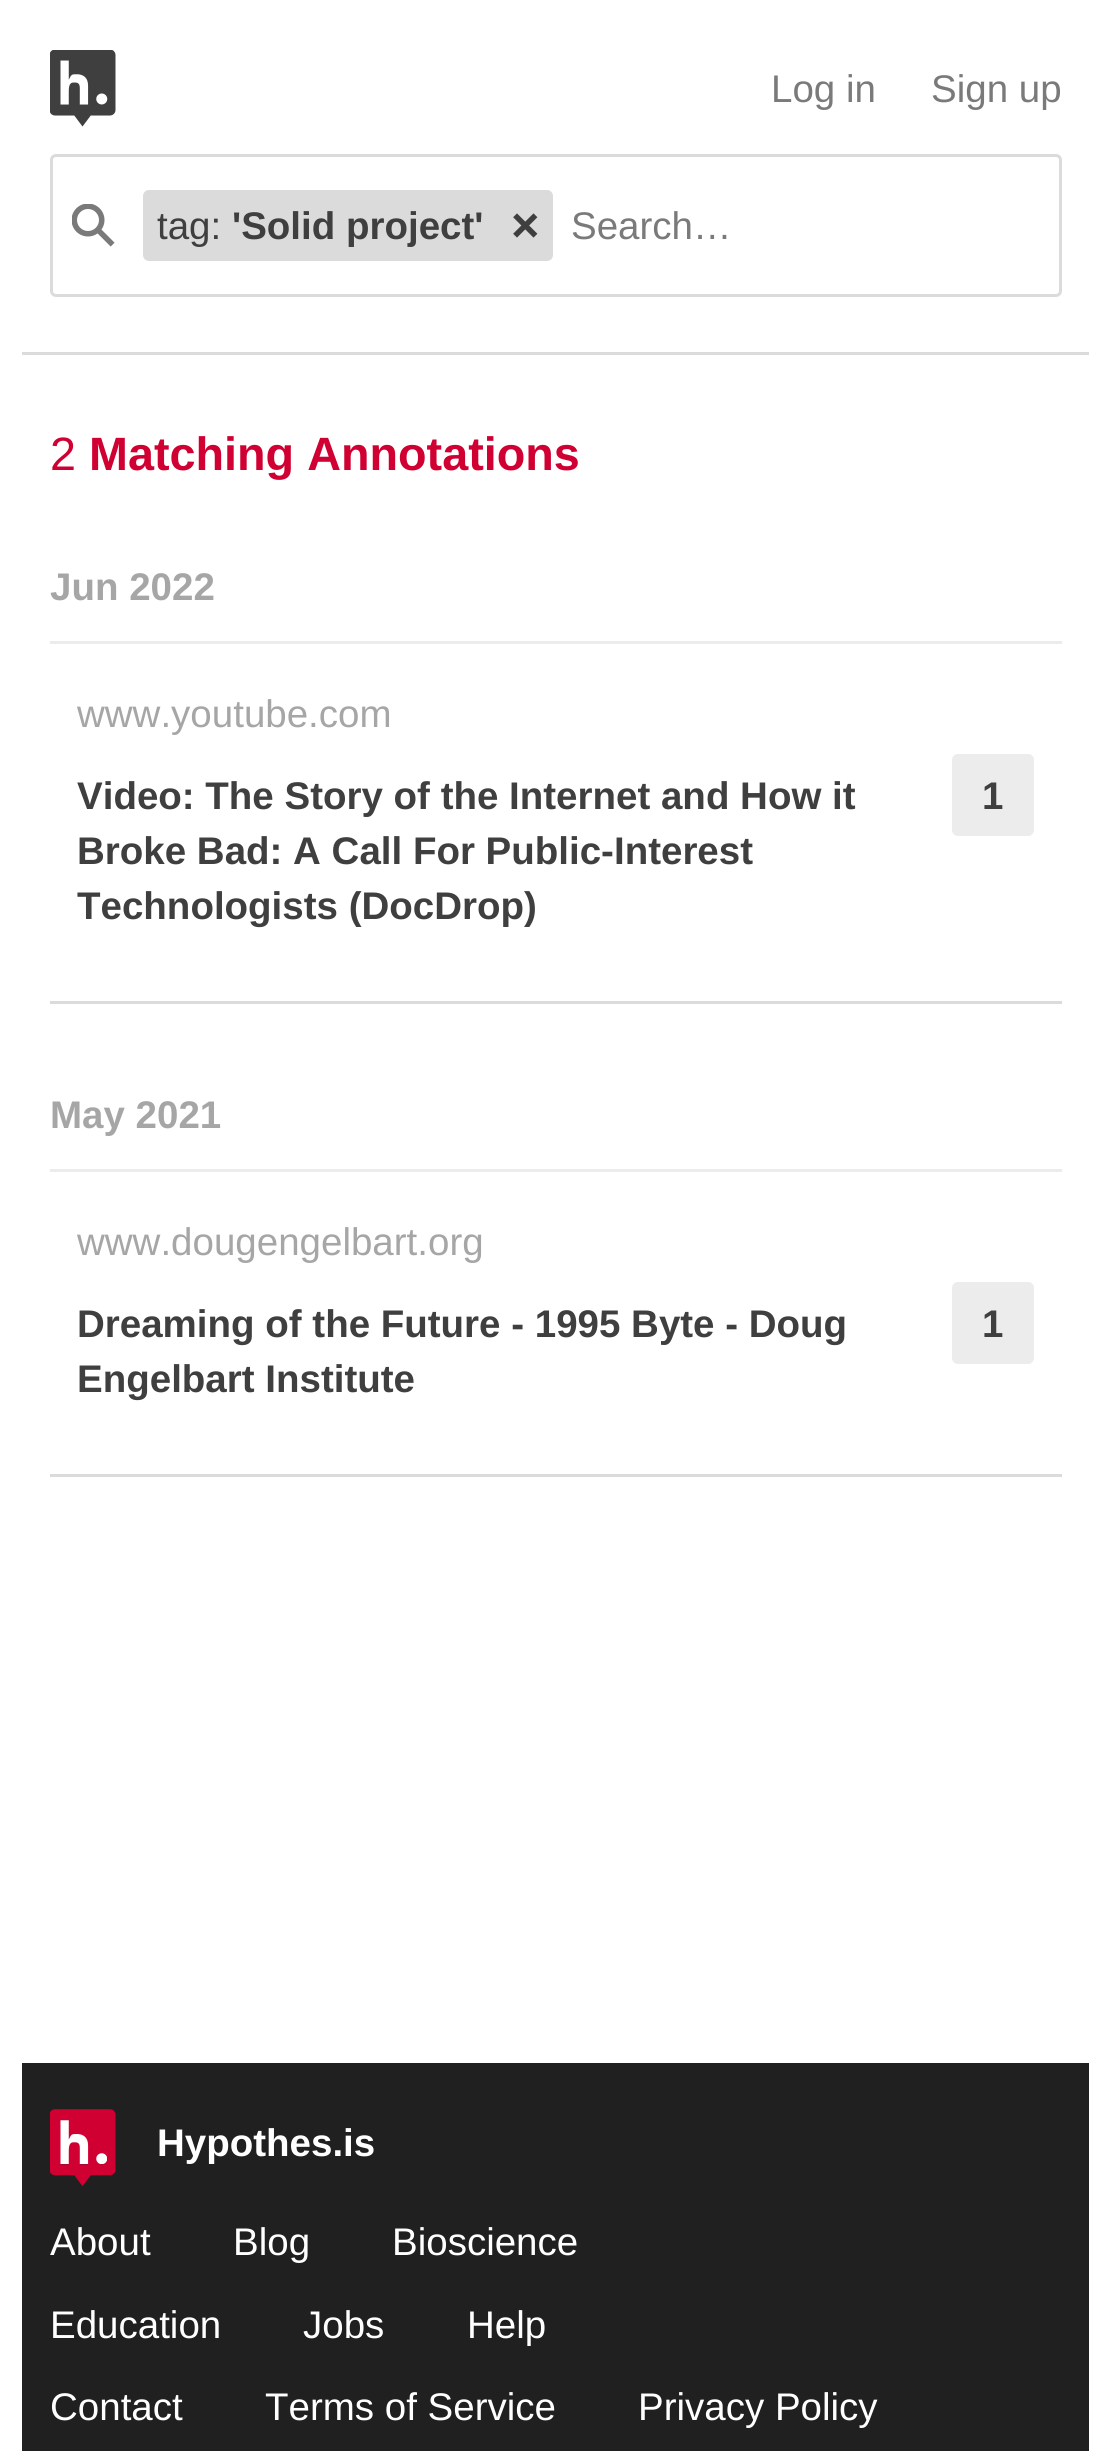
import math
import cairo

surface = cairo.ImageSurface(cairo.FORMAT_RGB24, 1110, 2451)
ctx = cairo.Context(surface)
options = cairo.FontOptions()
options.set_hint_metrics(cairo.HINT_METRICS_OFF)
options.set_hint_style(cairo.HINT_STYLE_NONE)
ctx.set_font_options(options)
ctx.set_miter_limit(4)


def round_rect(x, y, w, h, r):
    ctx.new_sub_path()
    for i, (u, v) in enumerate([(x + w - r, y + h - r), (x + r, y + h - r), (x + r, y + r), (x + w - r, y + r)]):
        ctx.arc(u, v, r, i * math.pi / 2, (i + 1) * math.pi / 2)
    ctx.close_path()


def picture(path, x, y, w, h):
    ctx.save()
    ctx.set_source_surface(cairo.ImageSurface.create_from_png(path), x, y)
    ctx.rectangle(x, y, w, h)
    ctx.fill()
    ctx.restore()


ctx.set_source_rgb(1, 1, 1)
ctx.paint()
ctx.set_source_rgb(0.859, 0.859, 0.859)
ctx.rectangle(22, 352, 1067, 3)
ctx.fill()
picture("img1.png", 50, 50, 66, 77)
ctx.select_font_face("Liberation Sans")
ctx.set_font_size(38.5)
ctx.set_source_rgb(0.478, 0.478, 0.478)
ctx.move_to(771, 102)
ctx.show_text("Log in")
ctx.move_to(931, 102)
ctx.show_text("Sign up")
round_rect(51.5, 155.5, 1009, 140, 4.5)
ctx.set_source_rgb(0.859, 0.859, 0.859)
ctx.set_line_width(3)
ctx.stroke()
picture("img2.png", 72, 204, 43, 43)
round_rect(143, 190, 410, 71, 6)
ctx.fill()
ctx.set_source_rgb(0.247, 0.247, 0.247)
ctx.move_to(157, 239)
ctx.show_text("tag:")
ctx.select_font_face("Liberation Sans", cairo.FONT_SLANT_NORMAL, cairo.FONT_WEIGHT_BOLD)
ctx.move_to(232, 239)
ctx.show_text("'Solid project'")
picture("img3.png", 513, 213, 25, 25)
ctx.select_font_face("Liberation Sans")
ctx.set_source_rgb(0.478, 0.478, 0.478)
ctx.move_to(571, 239)
ctx.show_text("Search…")
ctx.set_font_size(46.75)
ctx.set_source_rgb(0.816, 0, 0.196)
ctx.move_to(50, 470)
ctx.show_text("2")
ctx.select_font_face("Liberation Sans", cairo.FONT_SLANT_NORMAL, cairo.FONT_WEIGHT_BOLD)
ctx.move_to(89, 470)
ctx.show_text("Matching Annotations")
ctx.set_source_rgb(0.925, 0.925, 0.925)
ctx.rectangle(50, 641, 1012, 3)
ctx.fill()
ctx.set_font_size(38.5)
ctx.set_source_rgb(0.651, 0.651, 0.651)
ctx.move_to(50, 600)
ctx.show_text("Jun 2022")
ctx.set_source_rgb(0.859, 0.859, 0.859)
ctx.rectangle(50, 1001, 1012, 3)
ctx.fill()
ctx.select_font_face("Liberation Sans")
ctx.set_source_rgb(0.651, 0.651, 0.651)
ctx.move_to(77, 727)
ctx.show_text("www.youtube.com")
ctx.select_font_face("Liberation Sans", cairo.FONT_SLANT_NORMAL, cairo.FONT_WEIGHT_BOLD)
ctx.set_source_rgb(0.247, 0.247, 0.247)
ctx.move_to(77, 809)
ctx.show_text("Video: The Story of the Internet and How it")
ctx.move_to(77, 864)
ctx.show_text("Broke Bad: A Call For Public-Interest")
ctx.move_to(77, 919)
ctx.show_text("Technologists (DocDrop)")
ctx.set_source_rgb(0.925, 0.925, 0.925)
round_rect(952, 754, 82, 82, 6)
ctx.fill()
ctx.set_source_rgb(0.247, 0.247, 0.247)
ctx.move_to(982, 809)
ctx.show_text("1")
ctx.set_source_rgb(0.925, 0.925, 0.925)
ctx.rectangle(50, 1169, 1012, 3)
ctx.fill()
ctx.set_source_rgb(0.651, 0.651, 0.651)
ctx.move_to(50, 1128)
ctx.show_text("May 2021")
ctx.set_source_rgb(0.859, 0.859, 0.859)
ctx.rectangle(50, 1474, 1012, 3)
ctx.fill()
ctx.select_font_face("Liberation Sans")
ctx.set_source_rgb(0.651, 0.651, 0.651)
ctx.move_to(77, 1255)
ctx.show_text("www.dougengelbart.org")
ctx.select_font_face("Liberation Sans", cairo.FONT_SLANT_NORMAL, cairo.FONT_WEIGHT_BOLD)
ctx.set_source_rgb(0.247, 0.247, 0.247)
ctx.move_to(77, 1337)
ctx.show_text("Dreaming of the Future - 1995 Byte - Doug")
ctx.move_to(77, 1392)
ctx.show_text("Engelbart Institute")
ctx.set_source_rgb(0.925, 0.925, 0.925)
round_rect(952, 1282, 82, 82, 6)
ctx.fill()
ctx.set_source_rgb(0.247, 0.247, 0.247)
ctx.move_to(982, 1337)
ctx.show_text("1")
ctx.set_source_rgb(0.125, 0.125, 0.125)
ctx.rectangle(22, 2063, 1067, 388)
ctx.fill()
picture("img4.png", 50, 2109, 66, 77)
ctx.set_source_rgb(1, 1, 1)
ctx.move_to(157, 2156)
ctx.show_text("Hypothes.is")
ctx.select_font_face("Liberation Sans")
ctx.move_to(50, 2255)
ctx.show_text("About")
ctx.move_to(233, 2255)
ctx.show_text("Blog")
ctx.move_to(392, 2255)
ctx.show_text("Bioscience")
ctx.move_to(50, 2338)
ctx.show_text("Education")
ctx.move_to(303, 2338)
ctx.show_text("Jobs")
ctx.move_to(467, 2338)
ctx.show_text("Help")
ctx.move_to(50, 2420)
ctx.show_text("Contact")
ctx.move_to(265, 2420)
ctx.show_text("Terms of Service")
ctx.move_to(638, 2420)
ctx.show_text("Privacy Policy")
surface.write_to_png("page.png")
